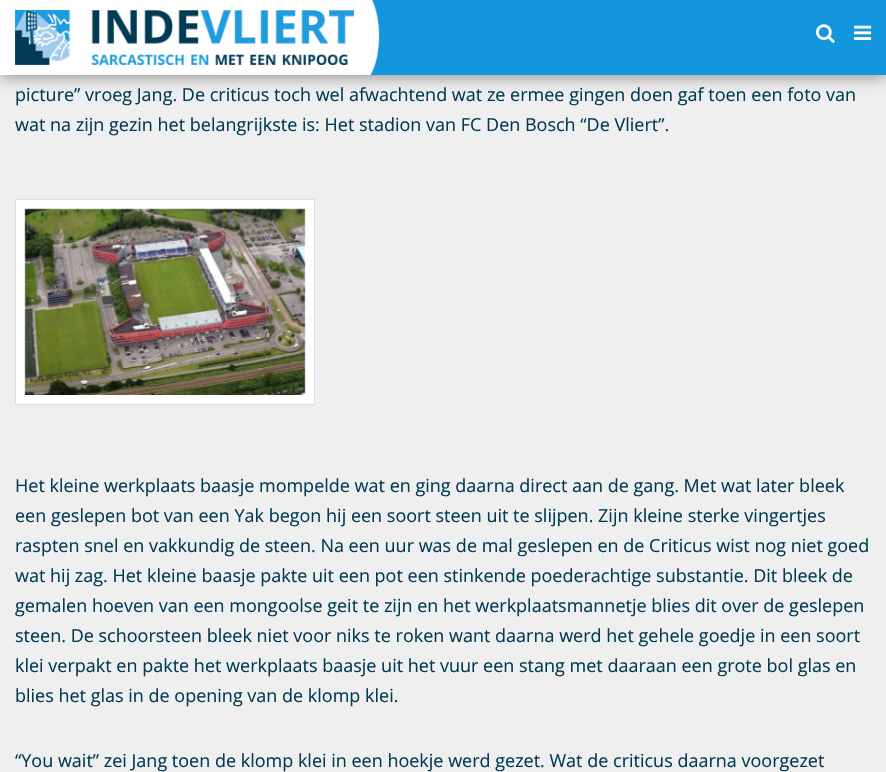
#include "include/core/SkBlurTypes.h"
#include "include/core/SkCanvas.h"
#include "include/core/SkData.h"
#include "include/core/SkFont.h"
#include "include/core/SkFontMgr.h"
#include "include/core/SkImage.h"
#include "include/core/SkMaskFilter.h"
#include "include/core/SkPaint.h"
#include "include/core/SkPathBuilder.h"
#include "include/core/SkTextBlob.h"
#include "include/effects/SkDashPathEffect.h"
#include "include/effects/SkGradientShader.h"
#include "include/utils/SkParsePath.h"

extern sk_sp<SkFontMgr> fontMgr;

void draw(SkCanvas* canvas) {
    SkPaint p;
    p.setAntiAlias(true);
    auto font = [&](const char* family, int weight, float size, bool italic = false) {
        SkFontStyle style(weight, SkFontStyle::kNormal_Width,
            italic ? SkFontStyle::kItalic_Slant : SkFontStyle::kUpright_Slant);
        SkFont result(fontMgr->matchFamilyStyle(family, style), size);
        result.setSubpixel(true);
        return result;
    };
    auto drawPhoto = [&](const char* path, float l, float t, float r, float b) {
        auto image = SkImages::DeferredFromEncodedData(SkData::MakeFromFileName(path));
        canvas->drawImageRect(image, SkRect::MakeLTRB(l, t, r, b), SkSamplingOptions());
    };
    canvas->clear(0xFFEFEFEF);
    p.setColor(0x66000000);
    p.setMaskFilter(SkMaskFilter::MakeBlur(kNormal_SkBlurStyle, 7.5f));
    canvas->drawRect(SkRect::MakeLTRB(0, 2, 886, 77), p);
    p.setMaskFilter(nullptr);
    p.setColor(0xFFFFFFFF);
    canvas->drawRect(SkRect::MakeLTRB(0, 0, 380, 75), p);
    drawPhoto("media/1.png", 15, 10, 354, 65);
    drawPhoto("media/2.png", 370, 0, 886, 75);
    drawPhoto("media/3.png", 816, 24, 835, 43);
    drawPhoto("media/4.png", 854, 25, 872, 40);
    auto font1 = font("Open Sans", 400, 18);
    p.setColor(0xFF013A53);
    canvas->drawString("picture” vroeg Jang. De criticus toch wel afwachtend wat ze ermee gingen doen gaf toen een foto van", 15, 101, font1, p);
    canvas->drawString("wat na zijn gezin het belangrijkste is: Het stadion van FC Den Bosch “De Vliert”.", 15, 131, font1, p);
    p.setColor(0xFFFFFFFF);
    canvas->drawRect(SkRect::MakeLTRB(15.5f, 199.5f, 314.5f, 404.5f), p);
    p.setStyle(SkPaint::kStroke_Style);
    p.setStrokeWidth(1);
    p.setColor(0xFFDDDDDD);
    canvas->drawRect(SkRect::MakeLTRB(15.5f, 199.5f, 314.5f, 404.5f), p);
    drawPhoto("media/5.png", 24, 208, 306, 395);
    p.setStyle(SkPaint::kFill_Style);
    p.setColor(0xFF013A53);
    {
        const struct { const char* s; float x, y; } items[] = {
            {"Het kleine werkplaats baasje mompelde wat en ging daarna direct aan de gang. Met wat later bleek", 15, 492},
            {"een geslepen bot van een Yak begon hij een soort steen uit te slijpen. Zijn kleine sterke vingertjes", 15, 522},
            {"raspten snel en vakkundig de steen. Na een uur was de mal geslepen en de Criticus wist nog niet goed", 15, 552},
            {"wat hij zag. Het kleine baasje pakte uit een pot een stinkende poederachtige substantie. Dit bleek de", 15, 582},
            {"gemalen hoeven van een mongoolse geit te zijn en het werkplaatsmannetje blies dit over de geslepen", 15, 612},
            {"steen. De schoorsteen bleek niet voor niks te roken want daarna werd het gehele goedje in een soort", 15, 642},
            {"klei verpakt en pakte het werkplaats baasje uit het vuur een stang met daaraan een grote bol glas en", 15, 672},
            {"blies het glas in de opening van de klomp klei.", 15, 702},
            {"“You wait” zei Jang toen de klomp klei in een hoekje werd gezet. Wat de criticus daarna voorgezet", 15, 767},
        };
        for (auto [s, x, y] : items) {
            canvas->drawString(s, x, y, font1, p);
        }
    }
}
